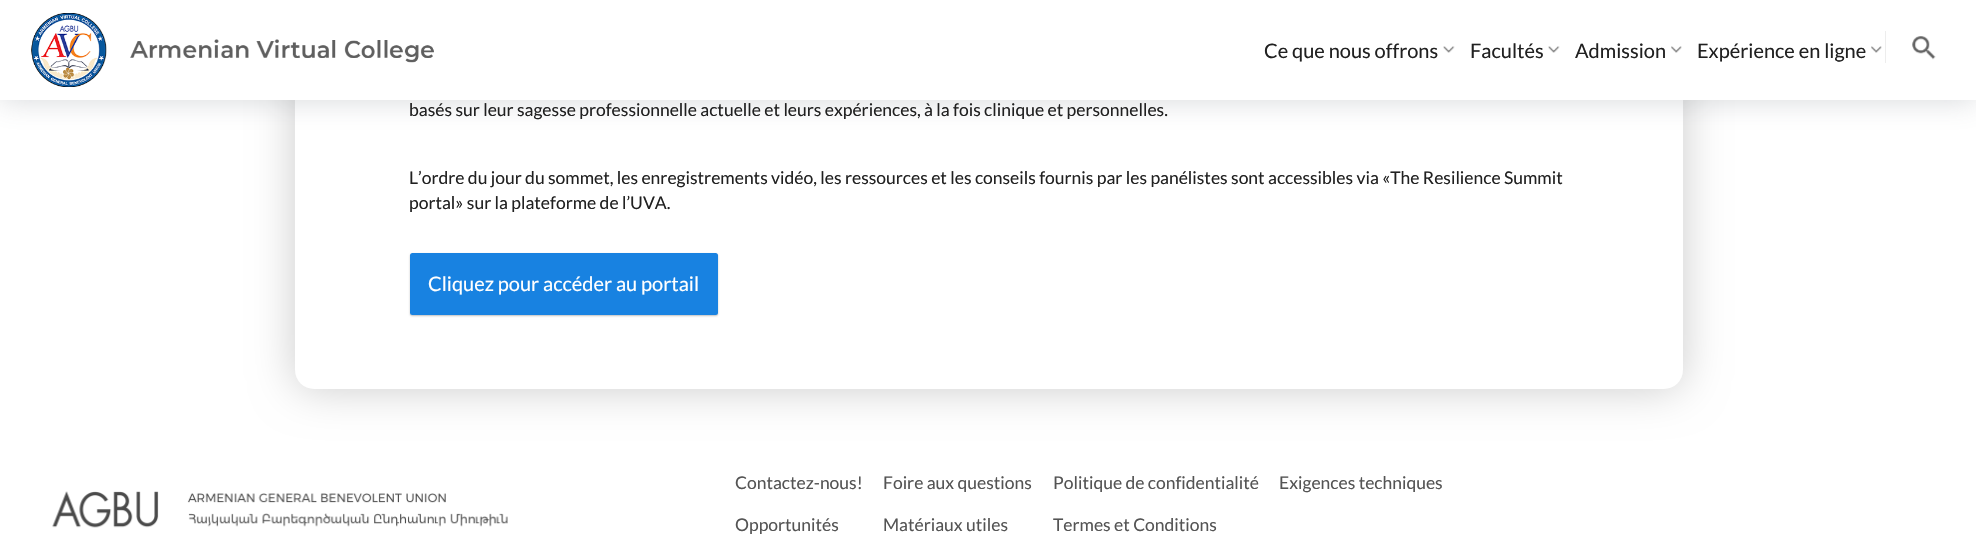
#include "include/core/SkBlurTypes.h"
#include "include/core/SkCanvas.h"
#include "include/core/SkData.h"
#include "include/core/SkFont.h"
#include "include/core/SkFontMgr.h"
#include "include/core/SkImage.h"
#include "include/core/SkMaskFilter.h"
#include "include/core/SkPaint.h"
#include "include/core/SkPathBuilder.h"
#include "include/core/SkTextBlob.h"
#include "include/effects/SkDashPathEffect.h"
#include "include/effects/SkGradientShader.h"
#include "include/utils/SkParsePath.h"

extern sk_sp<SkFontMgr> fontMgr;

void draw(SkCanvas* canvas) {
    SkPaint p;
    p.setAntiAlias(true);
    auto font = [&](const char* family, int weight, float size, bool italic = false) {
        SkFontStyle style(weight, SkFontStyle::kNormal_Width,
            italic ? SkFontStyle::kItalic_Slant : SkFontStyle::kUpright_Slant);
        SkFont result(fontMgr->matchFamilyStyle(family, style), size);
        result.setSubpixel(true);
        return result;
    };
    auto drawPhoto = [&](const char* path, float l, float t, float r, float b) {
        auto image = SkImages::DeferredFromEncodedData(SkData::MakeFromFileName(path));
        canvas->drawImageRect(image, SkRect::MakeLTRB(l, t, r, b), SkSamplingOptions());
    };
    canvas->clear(0xFFFFFFFF);
    p.setColor(0x33000000);
    p.setMaskFilter(SkMaskFilter::MakeBlur(kNormal_SkBlurStyle, 22));
    canvas->drawRoundRect(SkRect::MakeLTRB(295, -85, 1683, 389), 19, 19, p);
    p.setMaskFilter(nullptr);
    p.setColor(0xFFFFFFFF);
    canvas->drawRoundRect(SkRect::MakeLTRB(295, -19, 1683, 389), 19, 19, p);
    p.setColor(0x4D737C84);
    p.setMaskFilter(SkMaskFilter::MakeBlur(kNormal_SkBlurStyle, 14));
    canvas->drawRect(SkRect::MakeLTRB(0, 0, 1976, 100), p);
    p.setMaskFilter(nullptr);
    p.setColor(0xFFFFFFFF);
    canvas->drawRect(SkRect::MakeLTRB(0, 0, 1976, 100), p);
    drawPhoto("media/1.png", 31, 13, 434, 87);
    auto font1 = font("Lato", 400, 20);
    p.setColor(0xFF212121);
    canvas->drawString("Ce que nous offrons", 1264, 58, font1, p);
    drawPhoto("media/2.png", 1443, 46, 1455, 53);
    canvas->drawString("Facultés", 1470, 58, font1, p);
    drawPhoto("media/2.png", 1548, 46, 1560, 53);
    canvas->drawString("Admission", 1575, 58, font1, p);
    drawPhoto("media/3.png", 1671, 46, 1682, 53);
    canvas->drawString("Expérience en ligne", 1697, 58, font1, p);
    drawPhoto("media/3.png", 1871, 46, 1882, 53);
    p.setColor(0xFFEDEDED);
    canvas->drawRect(SkRect::MakeLTRB(1885, 31, 1886, 63), p);
    drawPhoto("media/4.png", 1912, 36, 1936, 60);
    auto font2 = font("Lato", 400, 17.5f);
    p.setColor(0xFF212121);
    {
        const struct { const char* s; float x, y; } items[] = {
            {"basés sur leur sagesse professionnelle actuelle et leurs expériences, à la fois clinique et personnelles.", 409, 116},
            {"L’ordre du jour du sommet, les enregistrements vidéo, les ressources et les conseils fournis par les panélistes sont accessibles via «The Resilience Summit", 409, 184},
            {"portal» sur la plateforme de l’UVA.", 409, 209},
        };
        for (auto [s, x, y] : items) {
            canvas->drawString(s, x, y, font2, p);
        }
    }
    p.setColor(0x40000000);
    p.setMaskFilter(SkMaskFilter::MakeBlur(kNormal_SkBlurStyle, 1));
    canvas->drawRoundRect(SkRect::MakeLTRB(410, 254, 718, 316), 2.5f, 2.5f, p);
    p.setMaskFilter(nullptr);
    p.setColor(0xFF1882E1);
    canvas->drawRoundRect(SkRect::MakeLTRB(410, 253, 718, 315), 2.5f, 2.5f, p);
    p.setColor(0xFFFFFFFF);
    canvas->drawString("Cliquez pour accéder au portail", 428, 291, font1, p);
    drawPhoto("media/5.png", 52, 491, 508, 528);
    p.setColor(0xFF545454);
    {
        const struct { const char* s; float x, y; } items[] = {
            {"Contactez-nous!", 735, 489},
            {"Opportunités", 735, 531},
            {"Foire aux questions", 883, 489},
            {"Matériaux utiles", 883, 531},
            {"Politique de confidentialité", 1053, 489},
            {"Termes et Conditions", 1053, 531},
            {"Exigences techniques", 1279, 489},
        };
        for (auto [s, x, y] : items) {
            canvas->drawString(s, x, y, font2, p);
        }
    }
}
